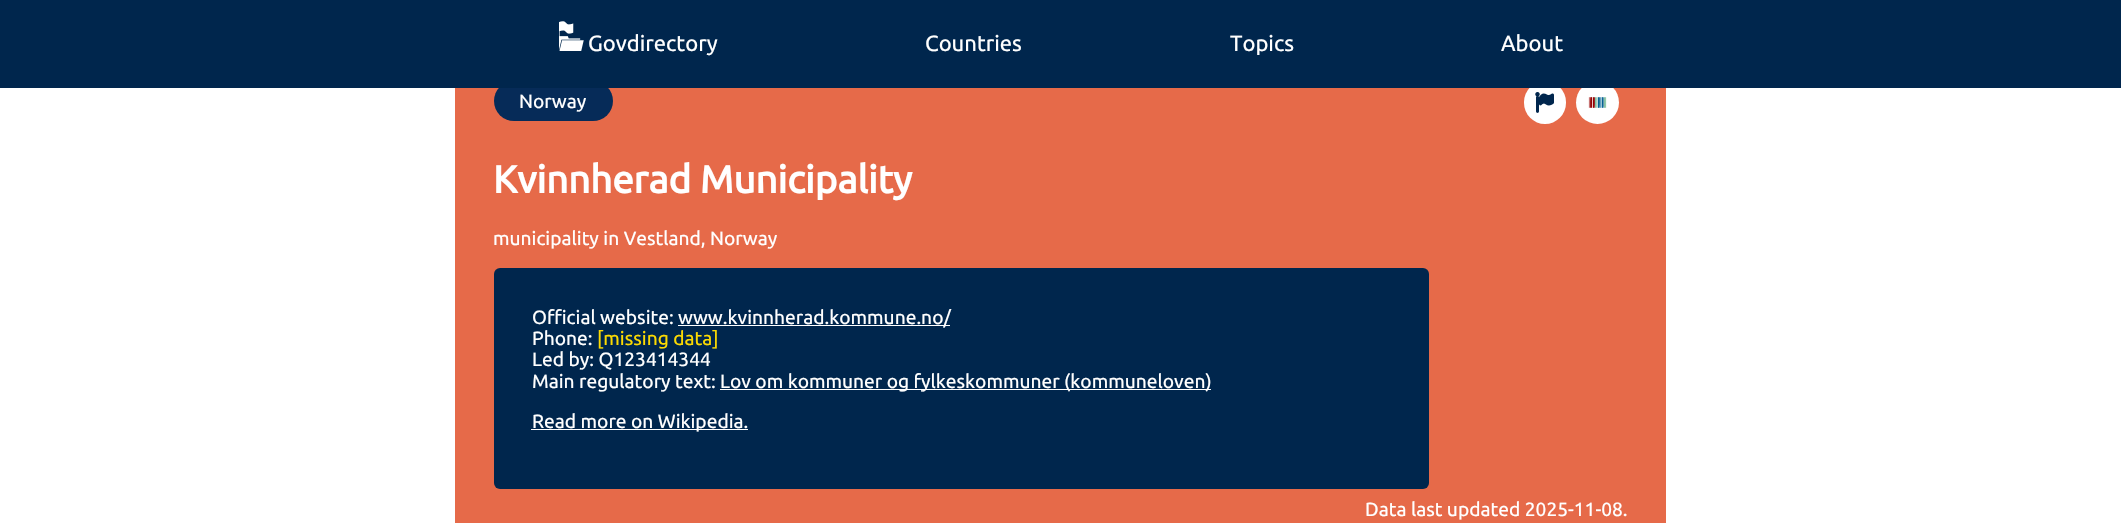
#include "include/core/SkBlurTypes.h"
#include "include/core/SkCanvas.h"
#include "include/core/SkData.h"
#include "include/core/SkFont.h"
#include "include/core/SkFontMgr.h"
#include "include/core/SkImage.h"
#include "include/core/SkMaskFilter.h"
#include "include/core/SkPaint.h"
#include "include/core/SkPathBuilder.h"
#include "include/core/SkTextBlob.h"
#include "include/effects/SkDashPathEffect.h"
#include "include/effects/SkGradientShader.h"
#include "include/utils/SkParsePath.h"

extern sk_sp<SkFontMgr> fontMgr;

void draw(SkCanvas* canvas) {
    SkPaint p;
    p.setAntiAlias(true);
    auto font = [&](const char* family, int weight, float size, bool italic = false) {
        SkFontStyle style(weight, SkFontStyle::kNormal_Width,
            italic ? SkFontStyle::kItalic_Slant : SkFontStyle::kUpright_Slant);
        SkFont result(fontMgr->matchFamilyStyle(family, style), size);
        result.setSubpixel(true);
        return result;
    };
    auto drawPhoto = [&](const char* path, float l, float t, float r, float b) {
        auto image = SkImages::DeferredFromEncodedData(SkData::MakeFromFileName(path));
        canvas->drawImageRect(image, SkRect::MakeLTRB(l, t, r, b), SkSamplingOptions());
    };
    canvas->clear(0xFFFFFFFF);
    p.setColor(0xFFE66A49);
    canvas->drawRect(SkRect::MakeLTRB(455, 88, 1666, 523), p);
    p.setColor(0xFF062B58);
    canvas->drawRoundRect(SkRect::MakeLTRB(494, 81, 613, 121), 20, 20, p);
    p.setColor(0xFFFFFFFF);
    canvas->drawRoundRect(SkRect::MakeLTRB(1524, 81, 1566, 124), 21, 21, p);
    canvas->drawCircle(1597.5f, 102.5f, 21.5f, p);
    p.setColor(0xFF00264D);
    canvas->drawRect(SkRect::MakeLTRB(0, 0, 2121, 88), p);
    drawPhoto("media/1.png", 559, 21, 584, 51);
    auto font1 = font("Ubuntu", 400, 22);
    p.setColor(0xFFFFFFFF);
    {
        const struct { const char* s; float x, y; } items[] = {
            {"Govdirectory", 588, 51},
            {"Countries", 925, 51},
            {"Topics", 1230, 51},
            {"About", 1501, 51},
        };
        for (auto [s, x, y] : items) {
            canvas->drawString(s, x, y, font1, p);
        }
    }
    auto font2 = font("Ubuntu", 400, 19.2f);
    canvas->drawString("Norway", 519, 108, font2, p);
    drawPhoto("media/2.png", 1535, 92, 1554, 113);
    drawPhoto("media/3.png", 1588, 97, 1607, 108);
    auto font3 = font("Ubuntu", 700, 38.4f);
    canvas->drawString("Kvinnherad Municipality", 493, 193, font3, p);
    canvas->drawString("municipality in Vestland, Norway", 493, 245, font2, p);
    p.setColor(0xFF00264D);
    canvas->drawRoundRect(SkRect::MakeLTRB(494, 268, 1429, 489), 6, 6, p);
    p.setColor(0xFFFFFFFF);
    canvas->drawString("Official website:", 532, 324, font2, p);
    canvas->drawRect(SkRect::MakeLTRB(678, 325, 950, 326), p);
    canvas->drawString("www.kvinnherad.kommune.no/", 678, 324, font2, p);
    canvas->drawString("Phone:", 532, 345, font2, p);
    p.setColor(0xFFFCDA02);
    canvas->drawString("[missing data]", 597, 345, font2, p);
    p.setColor(0xFFFFFFFF);
    canvas->drawString("Led by: Q123414344", 532, 366, font2, p);
    canvas->drawString("Main regulatory text:", 532, 388, font2, p);
    canvas->drawRect(SkRect::MakeLTRB(720, 389, 1211, 390), p);
    canvas->drawString("Lov om kommuner og fylkeskommuner (kommuneloven)", 720, 388, font2, p);
    canvas->drawRect(SkRect::MakeLTRB(531, 429, 748, 430), p);
    canvas->drawString("Read more on Wikipedia.", 532, 428, font2, p);
    canvas->drawString("Data last updated 2025-11-08.", 1365, 516, font2, p);
}
